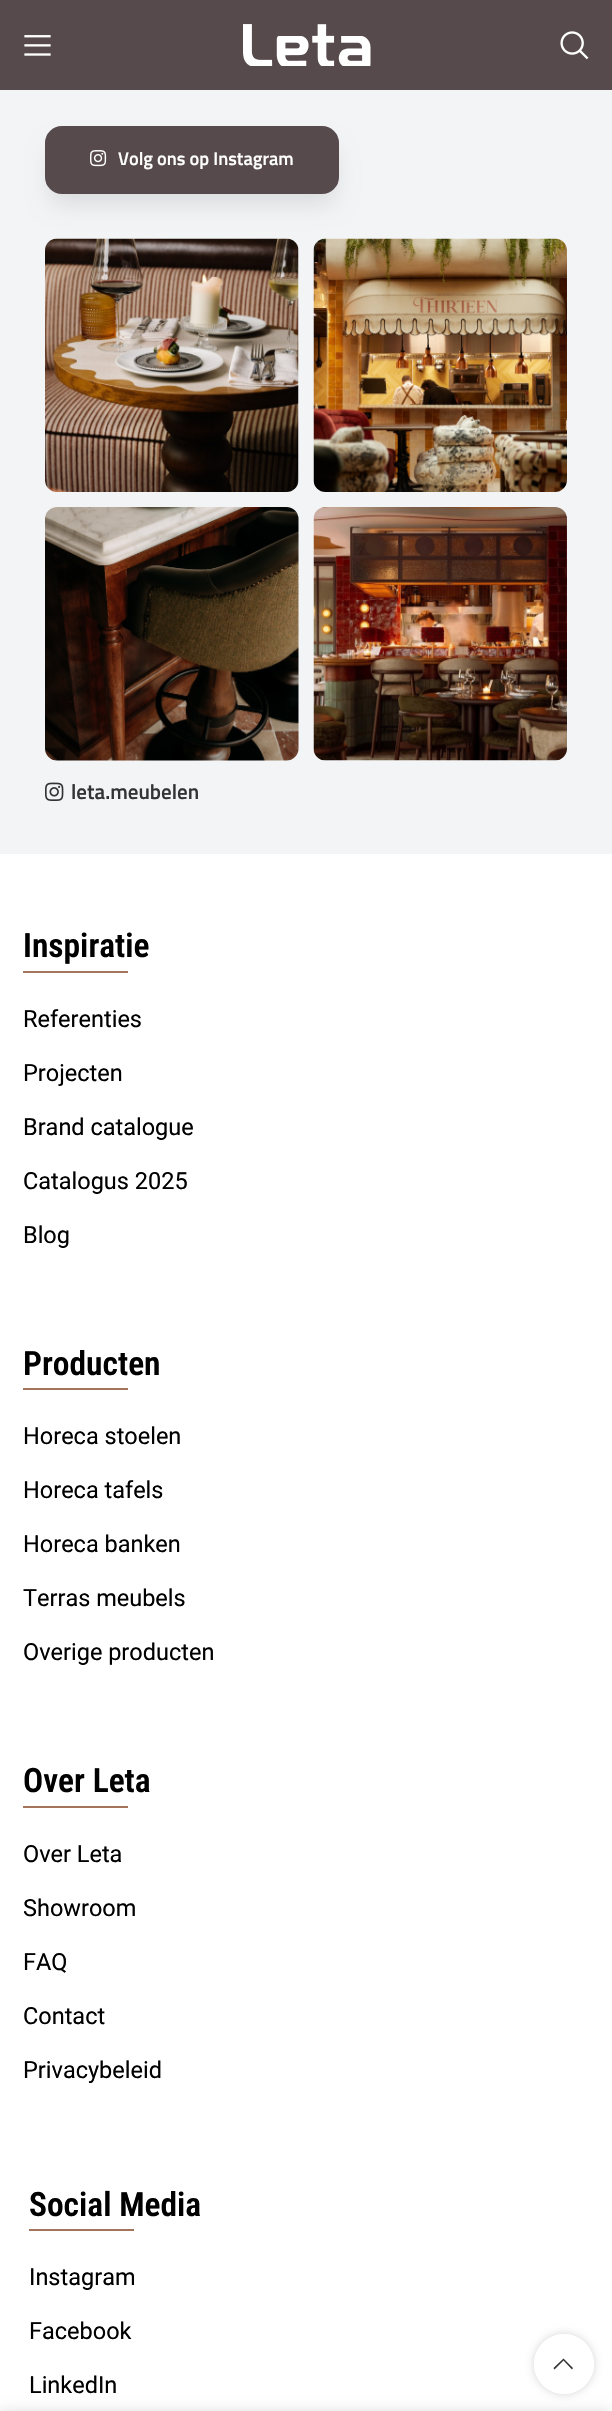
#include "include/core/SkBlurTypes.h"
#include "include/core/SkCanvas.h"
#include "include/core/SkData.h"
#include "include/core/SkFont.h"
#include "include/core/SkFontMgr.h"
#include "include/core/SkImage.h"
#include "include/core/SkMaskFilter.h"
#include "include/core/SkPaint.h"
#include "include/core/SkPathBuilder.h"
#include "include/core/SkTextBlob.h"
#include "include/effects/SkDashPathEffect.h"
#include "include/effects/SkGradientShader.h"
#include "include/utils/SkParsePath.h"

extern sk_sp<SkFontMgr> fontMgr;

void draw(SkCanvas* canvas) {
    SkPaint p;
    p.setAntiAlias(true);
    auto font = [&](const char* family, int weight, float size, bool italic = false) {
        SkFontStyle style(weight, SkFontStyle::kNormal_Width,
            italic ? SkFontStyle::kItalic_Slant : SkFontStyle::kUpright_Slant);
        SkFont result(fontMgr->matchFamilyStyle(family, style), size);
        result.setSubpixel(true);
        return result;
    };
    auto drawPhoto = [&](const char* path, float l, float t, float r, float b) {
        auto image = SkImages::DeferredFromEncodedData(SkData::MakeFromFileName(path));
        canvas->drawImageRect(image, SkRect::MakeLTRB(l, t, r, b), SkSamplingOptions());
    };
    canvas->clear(0xFFFFFFFF);
    p.setColor(0xFF574A4C);
    canvas->drawRect(SkRect::MakeLTRB(0, 0, 612, 90), p);
    drawPhoto("media/1.png", 24, 35, 51, 56);
    drawPhoto("media/2.png", 243, 24, 371, 66);
    drawPhoto("media/3.png", 560, 31, 589, 60);
    p.setColor(0xFFF3F4F6);
    canvas->drawRect(SkRect::MakeLTRB(0, 90, 612, 854), p);
    p.setColor(0x1A000000);
    p.setMaskFilter(SkMaskFilter::MakeBlur(kNormal_SkBlurStyle, 11));
    canvas->drawRoundRect(SkRect::MakeLTRB(50, 146, 335, 204), 12, 12, p);
    p.setMaskFilter(nullptr);
    p.setColor(0xFF574A4C);
    canvas->drawRoundRect(SkRect::MakeLTRB(46.5f, 127.5f, 337.5f, 192.5f), 15.5f, 15.5f, p);
    p.setStyle(SkPaint::kStroke_Style);
    p.setStrokeWidth(3);
    canvas->drawRoundRect(SkRect::MakeLTRB(46.5f, 127.5f, 337.5f, 192.5f), 15.5f, 15.5f, p);
    drawPhoto("media/4.png", 90, 150, 107, 167);
    auto font1 = font("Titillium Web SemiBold", 600, 18.4f);
    p.setStyle(SkPaint::kFill_Style);
    p.setColor(0xFFFFFFFF);
    canvas->drawString("Volg ons op Instagram", 118, 165, font1, p);
    drawPhoto("media/5.png", 45, 238, 299, 492);
    drawPhoto("media/6.png", 313, 238, 567, 492);
    drawPhoto("media/7.png", 45, 507, 299, 761);
    drawPhoto("media/8.png", 313, 507, 567, 761);
    drawPhoto("media/9.png", 45, 782, 64, 801);
    auto font2 = font("Titillium Web SemiBold", 600, 21);
    p.setColor(0xFF333333);
    canvas->drawString("leta.meubelen", 71, 799, font2, p);
    auto font3 = font("Roboto Condensed", 600, 33.5f);
    p.setColor(0xFF000000);
    canvas->drawString("Inspiratie", 23, 957, font3, p);
    p.setColor(0xFFA3755C);
    canvas->drawRect(SkRect::MakeLTRB(23, 971, 128, 973), p);
    auto font4 = font("Roboto", 400, 23.5f);
    p.setColor(0xFF000000);
    {
        const struct { const char* s; float x, y; } items[] = {
            {"Referenties", 23, 1027},
            {"Projecten", 23, 1081},
            {"Brand catalogue", 23, 1135},
            {"Catalogus 2025", 23, 1189},
            {"Blog", 23, 1243},
        };
        for (auto [s, x, y] : items) {
            canvas->drawString(s, x, y, font4, p);
        }
    }
    canvas->drawString("Producten", 23, 1375, font3, p);
    p.setColor(0xFFA3755C);
    canvas->drawRect(SkRect::MakeLTRB(23, 1388, 128, 1390), p);
    p.setColor(0xFF000000);
    {
        const struct { const char* s; float x, y; } items[] = {
            {"Horeca stoelen", 23, 1444},
            {"Horeca tafels", 23, 1498},
            {"Horeca banken", 23, 1552},
            {"Terras meubels", 23, 1606},
            {"Overige producten", 23, 1660},
        };
        for (auto [s, x, y] : items) {
            canvas->drawString(s, x, y, font4, p);
        }
    }
    canvas->drawString("Over Leta", 23, 1792, font3, p);
    p.setColor(0xFFA3755C);
    canvas->drawRect(SkRect::MakeLTRB(23, 1806, 128, 1808), p);
    p.setColor(0xFF000000);
    {
        const struct { const char* s; float x, y; } items[] = {
            {"Over Leta", 23, 1862},
            {"Showroom", 23, 1916},
            {"FAQ", 23, 1970},
            {"Contact", 23, 2024},
            {"Privacybeleid", 23, 2078},
        };
        for (auto [s, x, y] : items) {
            canvas->drawString(s, x, y, font4, p);
        }
    }
    canvas->drawString("Social Media", 29, 2216, font3, p);
    p.setColor(0xFFA3755C);
    canvas->drawRect(SkRect::MakeLTRB(29, 2229, 134, 2231), p);
    p.setColor(0xFF000000);
    {
        const struct { const char* s; float x, y; } items[] = {
            {"Instagram", 29, 2285},
            {"Facebook", 29, 2339},
            {"LinkedIn", 29, 2393},
        };
        for (auto [s, x, y] : items) {
            canvas->drawString(s, x, y, font4, p);
        }
    }
    canvas->save();
    canvas->clipPath(SkPathBuilder(SkPathFillType::kEvenOdd).moveTo(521, 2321).lineTo(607, 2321).lineTo(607, 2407).lineTo(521, 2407).close().moveTo(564, 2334).cubicTo(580.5f, 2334, 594, 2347.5f, 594, 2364).cubicTo(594, 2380.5f, 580.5f, 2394, 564, 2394).cubicTo(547.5f, 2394, 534, 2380.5f, 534, 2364).cubicTo(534, 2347.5f, 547.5f, 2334, 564, 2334).close().detach(), true);
    p.setColor(0x2B000000);
    p.setMaskFilter(SkMaskFilter::MakeBlur(kNormal_SkBlurStyle, 4));
    canvas->drawRoundRect(SkRect::MakeLTRB(534, 2334, 594, 2394), 30, 30, p);
    p.setMaskFilter(nullptr);
    canvas->restore();
    p.setColor(0xE6FFFFFF);
    canvas->drawCircle(564, 2364, 30, p);
    p.setColor(0xFF333333);
    canvas->drawPath(SkPathBuilder().moveTo(572, 2369.5f).lineTo(573, 2368).lineTo(563.5f, 2358.5f).lineTo(553.5f, 2368).lineTo(554.5f, 2369.5f).lineTo(563.5f, 2360.5f).close().detach(), p);
    p.setColor(0x24000000);
    p.setMaskFilter(SkMaskFilter::MakeBlur(kNormal_SkBlurStyle, 7));
    canvas->drawRect(SkRect::MakeLTRB(0, 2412, 612, 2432), p);
    p.setMaskFilter(nullptr);
}
